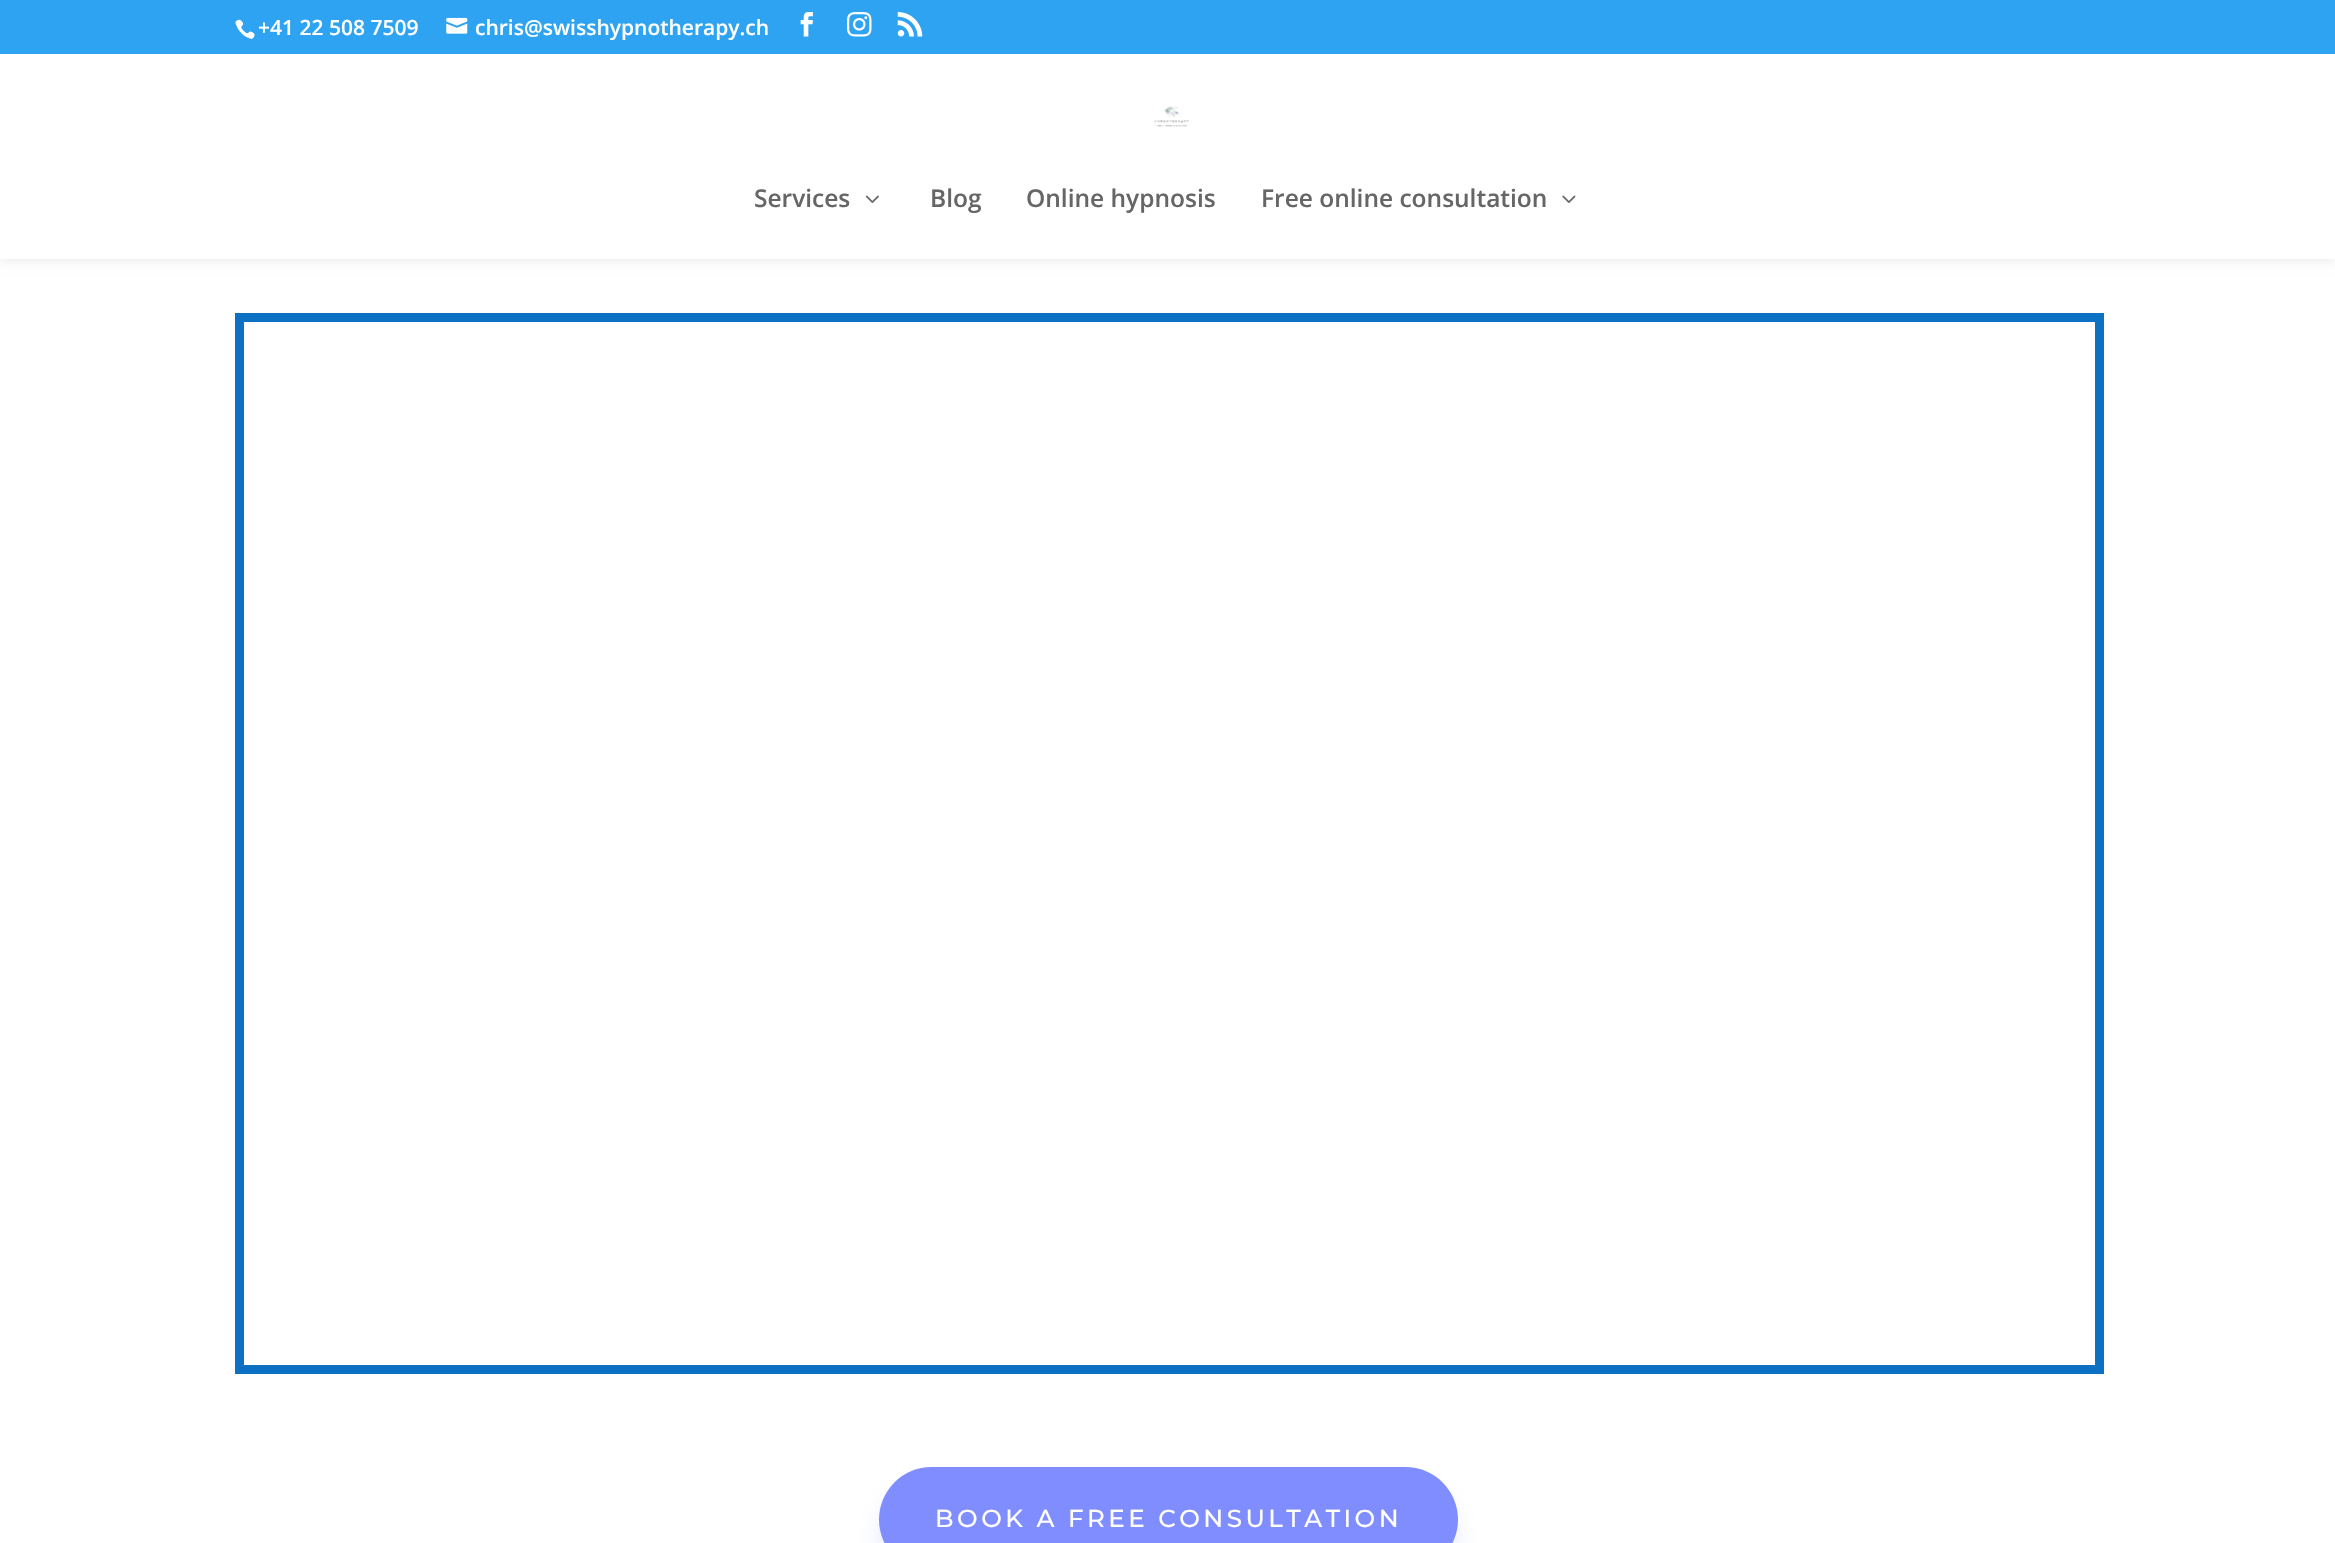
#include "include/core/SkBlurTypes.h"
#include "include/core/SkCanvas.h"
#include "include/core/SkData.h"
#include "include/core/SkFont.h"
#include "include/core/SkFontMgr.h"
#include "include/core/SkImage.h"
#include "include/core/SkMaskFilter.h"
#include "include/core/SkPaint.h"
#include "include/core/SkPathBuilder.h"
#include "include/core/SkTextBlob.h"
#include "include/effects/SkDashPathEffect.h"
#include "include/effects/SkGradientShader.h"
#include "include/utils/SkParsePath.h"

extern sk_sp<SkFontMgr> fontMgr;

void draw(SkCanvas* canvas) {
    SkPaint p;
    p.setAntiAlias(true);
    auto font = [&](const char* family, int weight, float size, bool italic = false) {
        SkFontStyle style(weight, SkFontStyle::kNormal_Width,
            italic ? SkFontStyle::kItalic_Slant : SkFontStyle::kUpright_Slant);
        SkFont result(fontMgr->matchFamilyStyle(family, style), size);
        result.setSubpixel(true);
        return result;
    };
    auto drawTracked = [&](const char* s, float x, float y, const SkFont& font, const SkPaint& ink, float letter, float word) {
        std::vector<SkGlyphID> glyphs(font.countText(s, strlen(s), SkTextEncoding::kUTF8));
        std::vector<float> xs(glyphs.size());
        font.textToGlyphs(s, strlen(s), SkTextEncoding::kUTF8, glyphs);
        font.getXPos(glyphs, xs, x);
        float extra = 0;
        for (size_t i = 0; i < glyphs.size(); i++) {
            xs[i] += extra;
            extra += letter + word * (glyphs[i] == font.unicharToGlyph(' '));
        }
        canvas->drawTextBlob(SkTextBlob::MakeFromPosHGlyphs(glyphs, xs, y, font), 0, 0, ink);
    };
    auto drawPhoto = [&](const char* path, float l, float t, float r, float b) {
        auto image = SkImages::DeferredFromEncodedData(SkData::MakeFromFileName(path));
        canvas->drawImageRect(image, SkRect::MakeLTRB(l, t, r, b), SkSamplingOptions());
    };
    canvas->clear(0xFFFFFFFF);
    p.setColor(0x1A000000);
    p.setMaskFilter(SkMaskFilter::MakeBlur(kNormal_SkBlurStyle, 6));
    canvas->drawRect(SkRect::MakeLTRB(0, 54, 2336, 259), p);
    p.setMaskFilter(nullptr);
    p.setColor(0xFF2EA3F2);
    canvas->drawRect(SkRect::MakeLTRB(0, 0, 2335, 54), p);
    drawPhoto("media/1.png", 235, 19, 255, 39);
    auto font1 = font("Open Sans", 600, 21);
    p.setColor(0xFFFFFFFF);
    canvas->drawString("+41 22 508 7509", 258, 35, font1, p);
    drawPhoto("media/2.png", 446, 17, 468, 34);
    canvas->drawString("chris@swisshypnotherapy.ch", 475, 35, font1, p);
    drawPhoto("media/3.png", 800, 12, 813, 37);
    drawPhoto("media/4.png", 847, 12, 872, 37);
    drawPhoto("media/5.png", 897, 12, 923, 37);
    canvas->drawRect(SkRect::MakeLTRB(0, 54, 2335, 259), p);
    drawPhoto("media/6.png", 1154, 106, 1189, 127);
    auto font2 = font("Open Sans", 600, 24.5f);
    p.setColor(0xFF666666);
    canvas->drawString("Services", 754, 207, font2, p);
    drawPhoto("media/7.png", 865, 195, 879, 203);
    {
        const struct { const char* s; float x, y; } items[] = {
            {"Blog", 930, 207},
            {"Online hypnosis", 1026, 207},
            {"Free online consultation", 1261, 207},
        };
        for (auto [s, x, y] : items) {
            canvas->drawString(s, x, y, font2, p);
        }
    }
    drawPhoto("media/8.png", 1562, 195, 1576, 203);
    p.setStyle(SkPaint::kStroke_Style);
    p.setStrokeWidth(9);
    p.setColor(0xFF0C71C3);
    canvas->drawRect(SkRect::MakeLTRB(239.5f, 317.5f, 2099.5f, 1369.5f), p);
    p.setStyle(SkPaint::kFill_Style);
    p.setColor(0x667F8DFF);
    p.setMaskFilter(SkMaskFilter::MakeBlur(kNormal_SkBlurStyle, 16));
    canvas->drawRoundRect(SkRect::MakeLTRB(889, 1498, 1447, 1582), 42, 42, p);
    p.setMaskFilter(nullptr);
    p.setColor(0xFF7F8DFF);
    canvas->drawRoundRect(SkRect::MakeLTRB(879, 1467, 1458, 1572), 52.5f, 52.5f, p);
    auto font3 = font("Montserrat", 500, 24.5f);
    p.setColor(0xFFFFFFFF);
    drawTracked("BOOK A FREE CONSULTATION", 935, 1527, font3, p, 3.5f, 0);
}
